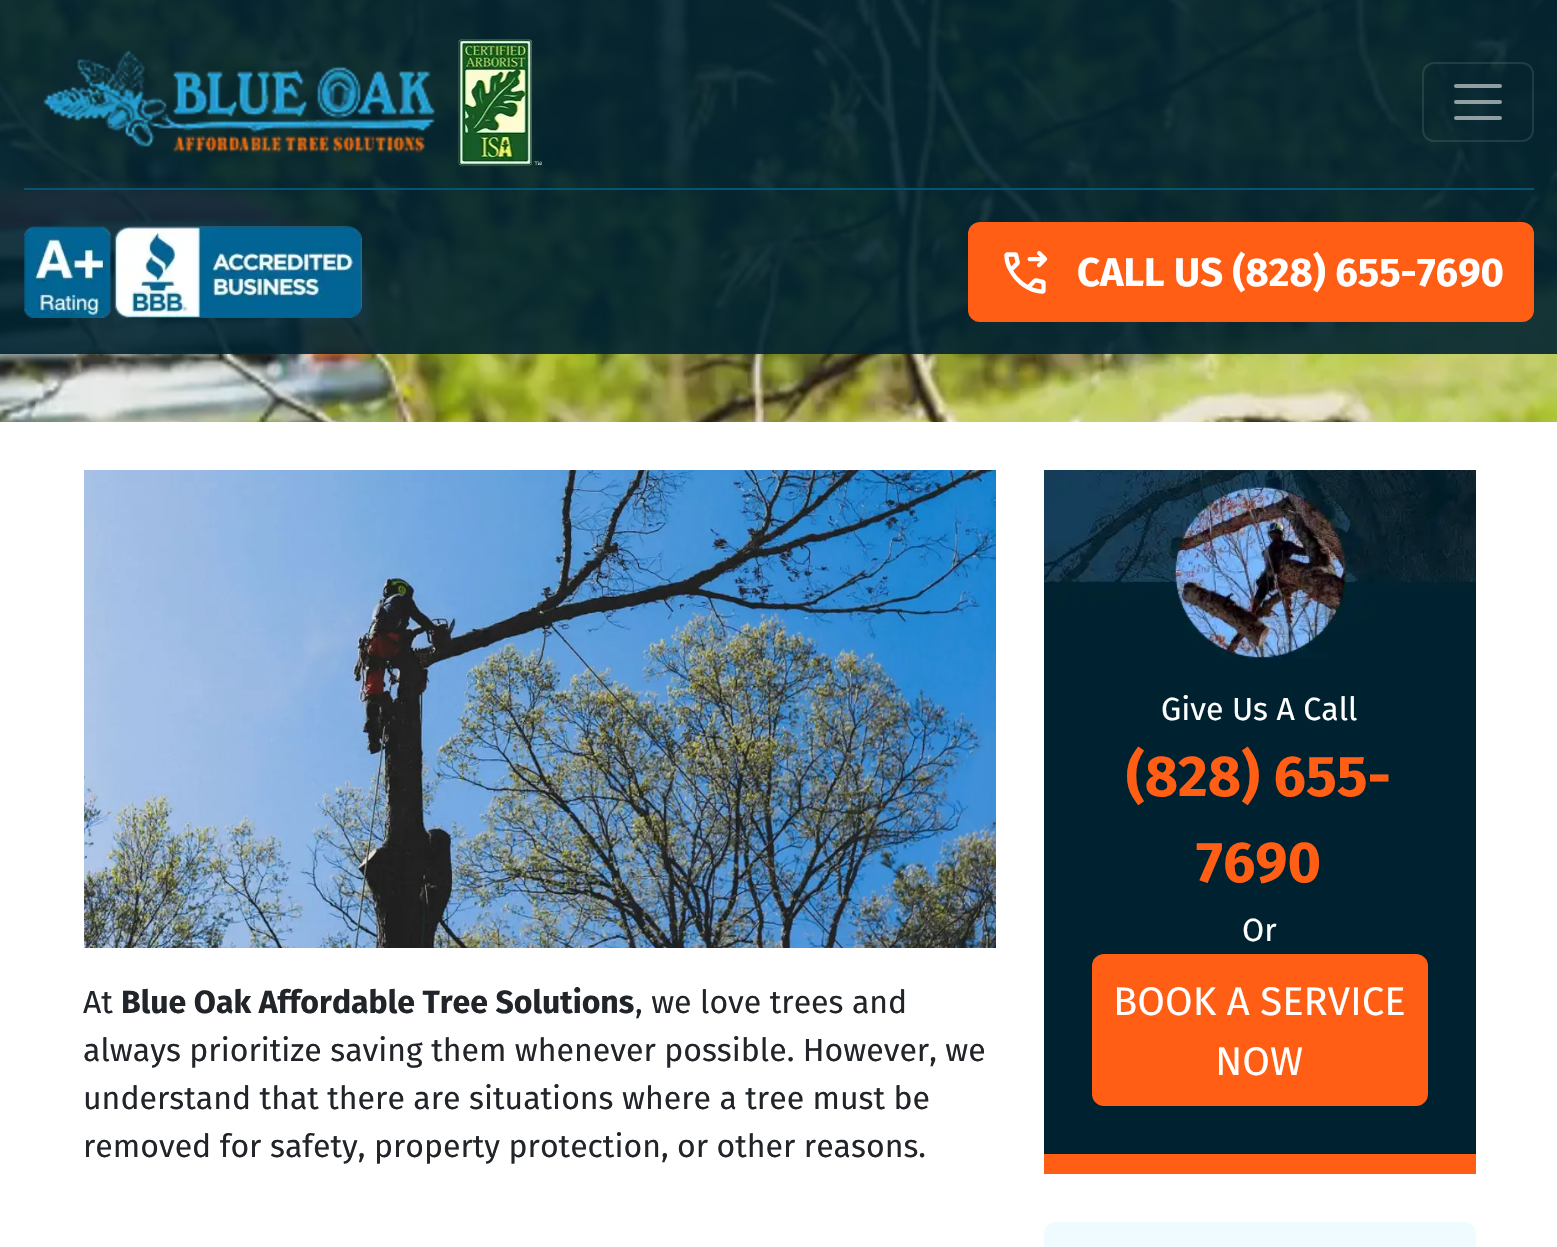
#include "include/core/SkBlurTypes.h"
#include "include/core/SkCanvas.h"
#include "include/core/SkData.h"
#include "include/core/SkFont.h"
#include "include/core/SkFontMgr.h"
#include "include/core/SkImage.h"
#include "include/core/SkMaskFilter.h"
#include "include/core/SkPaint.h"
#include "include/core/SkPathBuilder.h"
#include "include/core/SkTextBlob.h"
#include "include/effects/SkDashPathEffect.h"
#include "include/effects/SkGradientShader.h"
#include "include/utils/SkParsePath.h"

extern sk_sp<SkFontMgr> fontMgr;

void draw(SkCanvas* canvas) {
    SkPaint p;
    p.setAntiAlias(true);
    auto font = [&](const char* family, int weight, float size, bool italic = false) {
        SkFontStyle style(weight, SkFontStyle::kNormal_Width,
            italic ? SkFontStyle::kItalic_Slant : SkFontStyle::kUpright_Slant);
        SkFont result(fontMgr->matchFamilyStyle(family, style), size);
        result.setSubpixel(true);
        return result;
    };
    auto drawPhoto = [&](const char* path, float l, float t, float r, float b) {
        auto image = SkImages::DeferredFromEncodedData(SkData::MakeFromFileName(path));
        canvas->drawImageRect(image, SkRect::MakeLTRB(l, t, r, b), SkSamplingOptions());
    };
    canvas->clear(0xFFFFFFFF);
    drawPhoto("media/1.png", 0, 0, 1557, 422);
    p.setColor(0xE6002230);
    canvas->drawRect(SkRect::MakeLTRB(0, 0, 1557, 354), p);
    drawPhoto("media/2.png", 43, 49, 435, 153);
    drawPhoto("media/3.png", 458, 39, 542, 166);
    p.setStyle(SkPaint::kStroke_Style);
    p.setStrokeWidth(2);
    p.setColor(0x1AFFFFFF);
    canvas->drawRoundRect(SkRect::MakeLTRB(1423, 63, 1533, 141), 11, 11, p);
    p.setStrokeWidth(4);
    p.setStrokeCap(SkPaint::kRound_Cap);
    p.setColor(0x8CFFFFFF);
    canvas->drawPath(SkPathBuilder().moveTo(1456, 86).lineTo(1500, 86).moveTo(1456, 102).lineTo(1500, 102).moveTo(1456, 118).lineTo(1500, 118).detach(), p);
    p.setStyle(SkPaint::kFill_Style);
    p.setColor(0xFF075373);
    canvas->drawRect(SkRect::MakeLTRB(24, 188, 1534, 190), p);
    drawPhoto("media/4.png", 24, 226, 362, 318);
    p.setColor(0xFFFF5E14);
    canvas->drawRoundRect(SkRect::MakeLTRB(968, 222, 1534, 322), 12, 12, p);
    drawPhoto("media/5.png", 1004, 251, 1048, 294);
    auto font1 = font("Fira Sans", 700, 40);
    p.setColor(0xFFFFFFFF);
    canvas->drawString("CALL US (828) 655-7690", 1077, 286, font1, p);
    drawPhoto("media/6.png", 84, 470, 996, 948);
    auto font2 = font("Fira Sans", 400, 32);
    p.setColor(0xFF212529);
    canvas->drawString("At", 83, 1013, font2, p);
    auto font3 = font("Fira Sans", 700, 32);
    canvas->drawString("Blue Oak Affordable Tree Solutions", 121, 1013, font3, p);
    {
        const struct { const char* s; float x, y; } items[] = {
            {", we love trees and", 635, 1013},
            {"always prioritize saving them whenever possible. However, we", 83, 1061},
            {"understand that there are situations where a tree must be", 83, 1109},
            {"removed for safety, property protection, or other reasons.", 83, 1157},
        };
        for (auto [s, x, y] : items) {
            canvas->drawString(s, x, y, font2, p);
        }
    }
    p.setColor(0xFF002230);
    canvas->drawRect(SkRect::MakeLTRB(1044, 659, 1476, 1154), p);
    drawPhoto("media/7.png", 1044, 470, 1476, 659);
    p.setColor(0xFFFF5E14);
    canvas->drawRect(SkRect::MakeLTRB(1044, 1154, 1476, 1174), p);
    p.setColor(0xFFFFFFFF);
    canvas->drawString("Give Us A Call", 1161, 720, font2, p);
    auto font4 = font("Fira Sans", 700, 57.5f);
    p.setColor(0xFFFF5E14);
    canvas->drawString("(828) 655-", 1126, 796, font4, p);
    canvas->drawString("7690", 1196, 882, font4, p);
    p.setColor(0xFFFFFFFF);
    canvas->drawString("Or", 1242, 941, font2, p);
    p.setColor(0xFFFF5E14);
    canvas->drawRoundRect(SkRect::MakeLTRB(1092, 954, 1428, 1106), 12, 12, p);
    auto font5 = font("Fira Sans", 400, 40);
    p.setColor(0xFFFFFFFF);
    canvas->drawString("BOOK A SERVICE", 1113, 1015, font5, p);
    canvas->drawString("NOW", 1215, 1075, font5, p);
    p.setColor(0xFFEFFBFF);
    canvas->drawRoundRect(SkRect::MakeLTRB(1044, 1222, 1476, 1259), 12, 12, p);
}
